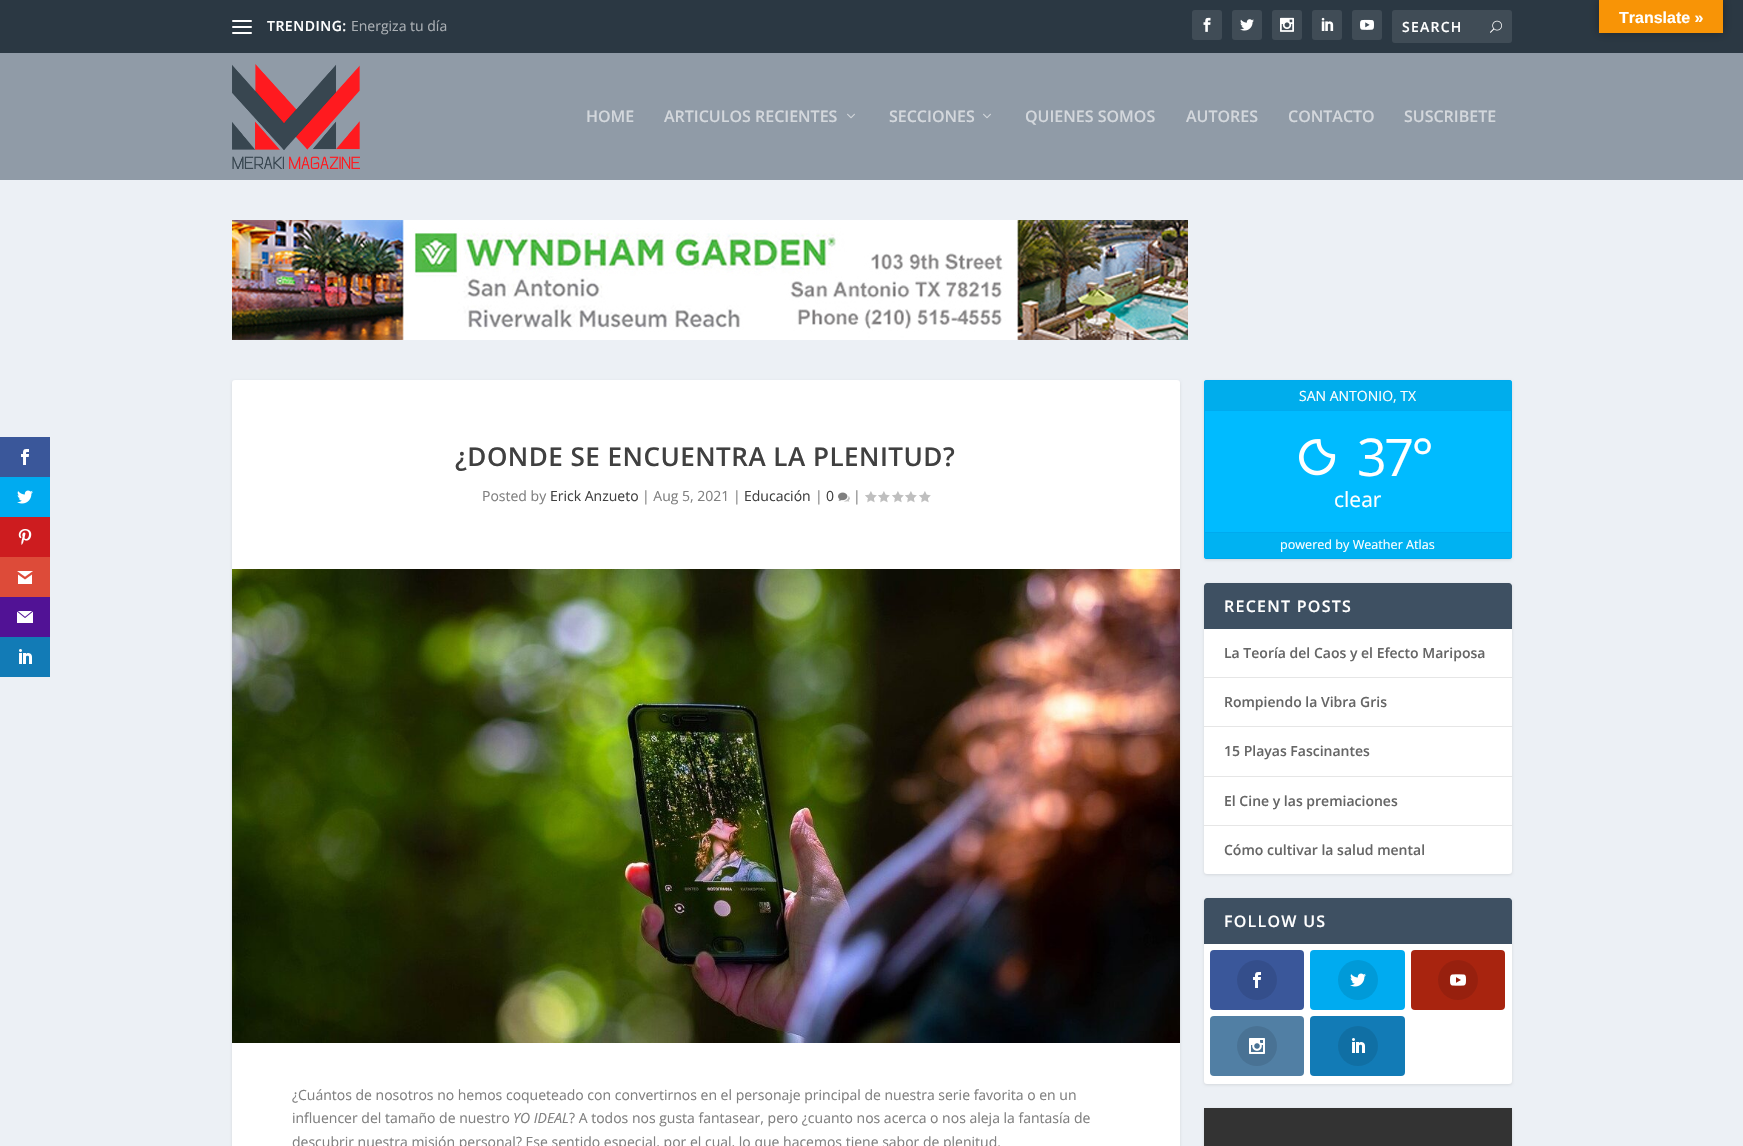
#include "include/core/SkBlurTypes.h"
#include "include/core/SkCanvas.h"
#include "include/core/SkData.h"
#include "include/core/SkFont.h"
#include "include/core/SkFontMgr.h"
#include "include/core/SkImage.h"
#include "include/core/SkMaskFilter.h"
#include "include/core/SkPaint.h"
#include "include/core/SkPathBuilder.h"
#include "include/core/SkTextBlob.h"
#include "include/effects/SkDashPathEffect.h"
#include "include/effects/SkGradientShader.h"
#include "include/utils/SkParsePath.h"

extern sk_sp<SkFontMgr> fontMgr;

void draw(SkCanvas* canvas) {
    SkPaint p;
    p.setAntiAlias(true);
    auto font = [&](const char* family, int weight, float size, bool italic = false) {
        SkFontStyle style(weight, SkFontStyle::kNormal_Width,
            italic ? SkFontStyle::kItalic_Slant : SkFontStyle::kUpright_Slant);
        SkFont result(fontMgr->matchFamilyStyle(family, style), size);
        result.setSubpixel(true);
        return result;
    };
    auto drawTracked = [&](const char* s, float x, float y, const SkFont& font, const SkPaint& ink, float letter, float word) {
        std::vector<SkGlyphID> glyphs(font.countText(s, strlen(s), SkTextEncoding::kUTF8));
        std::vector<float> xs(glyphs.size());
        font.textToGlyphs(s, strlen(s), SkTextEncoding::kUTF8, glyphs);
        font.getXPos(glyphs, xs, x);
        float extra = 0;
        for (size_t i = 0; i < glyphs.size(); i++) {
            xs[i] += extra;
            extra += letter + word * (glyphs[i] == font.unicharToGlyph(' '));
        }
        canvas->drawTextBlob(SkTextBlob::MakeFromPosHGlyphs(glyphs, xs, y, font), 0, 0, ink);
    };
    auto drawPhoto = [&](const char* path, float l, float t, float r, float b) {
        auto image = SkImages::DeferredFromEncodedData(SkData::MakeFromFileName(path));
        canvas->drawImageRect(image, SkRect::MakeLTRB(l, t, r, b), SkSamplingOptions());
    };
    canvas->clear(0xFFECF0F5);
    p.setColor(0xFF2B3843);
    canvas->drawRect(SkRect::MakeLTRB(0, 0, 1743, 53), p);
    p.setColor(0x4D000000);
    p.setMaskFilter(SkMaskFilter::MakeBlur(kNormal_SkBlurStyle, 4.5f));
    canvas->drawRect(SkRect::MakeLTRB(1599, 0, 1723, 33), p);
    p.setMaskFilter(nullptr);
    p.setColor(0xFFF89406);
    canvas->drawRect(SkRect::MakeLTRB(1599, 0, 1723, 33), p);
    auto font1 = font("Liberation Sans", 700, 16);
    p.setColor(0xFFFFFFFF);
    canvas->drawString("Translate »", 1619, 23, font1, p);
    p.setColor(0xFF3A579A);
    canvas->drawRect(SkRect::MakeLTRB(0, 437, 50, 477), p);
    drawPhoto("media/1.png", 21, 449, 29, 465);
    p.setColor(0xFF00ABF0);
    canvas->drawRect(SkRect::MakeLTRB(0, 477, 50, 517), p);
    drawPhoto("media/2.png", 17, 490, 33, 504);
    p.setColor(0xFFCD1C1F);
    canvas->drawRect(SkRect::MakeLTRB(0, 517, 50, 557), p);
    drawPhoto("media/3.png", 18, 529, 32, 545);
    p.setColor(0xFFDD4B39);
    canvas->drawRect(SkRect::MakeLTRB(0, 557, 50, 597), p);
    drawPhoto("media/4.png", 17, 571, 33, 584);
    p.setColor(0xFF511295);
    canvas->drawRect(SkRect::MakeLTRB(0, 597, 50, 637), p);
    drawPhoto("media/5.png", 17, 611, 33, 623);
    p.setColor(0xFF127BB6);
    canvas->drawRect(SkRect::MakeLTRB(0, 637, 50, 677), p);
    drawPhoto("media/6.png", 19, 649, 32, 664);
    p.setColor(0xFFFFFFFF);
    canvas->drawRoundRect(SkRect::MakeLTRB(232, 20, 252, 22), 1, 1, p);
    canvas->drawRoundRect(SkRect::MakeLTRB(232, 26, 252, 28), 1, 1, p);
    canvas->drawRoundRect(SkRect::MakeLTRB(232, 32, 252, 34), 1, 1, p);
    auto font2 = font("Open Sans", 600, 14);
    drawTracked("TRENDING:", 267, 31, font2, p, 0.5f, 0);
    auto font3 = font("Open Sans", 400, 14);
    p.setColor(0xFFAAAFB4);
    canvas->drawString("Energiza tu día", 351, 31, font3, p);
    p.setColor(0xFF404C56);
    canvas->drawRoundRect(SkRect::MakeLTRB(1192, 10, 1222, 40), 3, 3, p);
    drawPhoto("media/7.png", 1203, 17, 1211, 32);
    canvas->drawRoundRect(SkRect::MakeLTRB(1232, 10, 1262, 40), 3, 3, p);
    drawPhoto("media/8.png", 1240, 19, 1254, 31);
    canvas->drawRoundRect(SkRect::MakeLTRB(1272, 10, 1302, 40), 3, 3, p);
    drawPhoto("media/9.png", 1280, 17, 1294, 32);
    canvas->drawRoundRect(SkRect::MakeLTRB(1312, 10, 1342, 40), 3, 3, p);
    drawPhoto("media/10.png", 1321, 17, 1334, 31);
    canvas->drawRoundRect(SkRect::MakeLTRB(1352, 10, 1382, 40), 3, 3, p);
    drawPhoto("media/11.png", 1360, 19, 1374, 30);
    canvas->drawRoundRect(SkRect::MakeLTRB(1392, 10, 1512, 43), 3, 3, p);
    p.setColor(0xFFFFFFFF);
    drawTracked("SEARCH", 1402, 32, font2, p, 1.25f, 0);
    drawPhoto("media/12.png", 1490, 20, 1502, 33);
    p.setColor(0xFF909BA7);
    canvas->drawRect(SkRect::MakeLTRB(0, 53, 1743, 180), p);
    drawPhoto("media/13.png", 232, 64, 360, 169);
    auto font4 = font("Open Sans", 600, 16);
    p.setColor(0xFFD3D7DC);
    canvas->drawString("HOME", 586, 122, font4, p);
    canvas->drawString("ARTICULOS RECIENTES", 664, 122, font4, p);
    drawPhoto("media/14.png", 847, 113, 855, 119);
    canvas->drawString("SECCIONES", 889, 122, font4, p);
    drawPhoto("media/14.png", 983, 113, 991, 119);
    {
        const struct { const char* s; float x, y; } items[] = {
            {"QUIENES SOMOS", 1025, 122},
            {"AUTORES", 1186, 122},
            {"CONTACTO", 1288, 122},
            {"SUSCRIBETE", 1404, 122},
        };
        for (auto [s, x, y] : items) {
            canvas->drawString(s, x, y, font4, p);
        }
    }
    drawPhoto("media/15.png", 232, 220, 1188, 340);
    p.setColor(0x1A000000);
    p.setMaskFilter(SkMaskFilter::MakeBlur(kNormal_SkBlurStyle, 1.5f));
    canvas->drawRoundRect(SkRect::MakeLTRB(232, 381, 1180, 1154), 3, 3, p);
    p.setMaskFilter(nullptr);
    p.setColor(0xFFFFFFFF);
    canvas->drawRoundRect(SkRect::MakeLTRB(232, 380, 1180, 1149), 3, 3, p);
    auto font5 = font("Open Sans", 600, 26);
    p.setColor(0xFF404040);
    drawTracked("¿DONDE SE ENCUENTRA LA PLENITUD?", 455, 466, font5, p, 0.5f, 0);
    p.setColor(0xFF808080);
    canvas->drawString("Posted by", 482, 501, font3, p);
    p.setColor(0xFF404040);
    canvas->drawString("Erick Anzueto", 550, 501, font3, p);
    p.setColor(0xFF808080);
    canvas->drawString("| Aug 5, 2021 |", 642, 501, font3, p);
    p.setColor(0xFF404040);
    canvas->drawString("Educación", 744, 501, font3, p);
    p.setColor(0xFF808080);
    canvas->drawString("|", 815, 501, font3, p);
    p.setColor(0xFF404040);
    canvas->drawString("0", 826, 501, font3, p);
    drawPhoto("media/16.png", 838, 492, 850, 502);
    p.setColor(0xFF808080);
    canvas->drawString("|", 853, 501, font3, p);
    drawPhoto("media/17.png", 865, 491, 877, 503);
    drawPhoto("media/17.png", 878, 491, 890, 503);
    drawPhoto("media/17.png", 892, 491, 904, 503);
    drawPhoto("media/17.png", 905, 491, 917, 503);
    drawPhoto("media/17.png", 919, 491, 931, 503);
    drawPhoto("media/18.png", 232, 569, 1180, 1043);
    canvas->drawString("¿Cuántos de nosotros no hemos coqueteado con convertirnos en el personaje principal de nuestra serie favorita o en un", 292, 1100, font3, p);
    canvas->drawString("influencer del tamaño de nuestro", 292, 1123, font3, p);
    auto font6 = font("Open Sans", 400, 14, true);
    canvas->drawString("YO IDEAL", 513, 1123, font6, p);
    canvas->drawString("? A todos nos gusta fantasear, pero ¿cuanto nos acerca o nos aleja la fantasía de", 569, 1123, font3, p);
    canvas->drawString("descubrir nuestra misión personal? Ese sentido especial, por el cual, lo que hacemos tiene sabor de plenitud.", 292, 1147, font3, p);
    p.setColor(0x1A000000);
    p.setMaskFilter(SkMaskFilter::MakeBlur(kNormal_SkBlurStyle, 1.5f));
    canvas->drawRoundRect(SkRect::MakeLTRB(1204, 381, 1512, 560), 3, 3, p);
    p.setMaskFilter(nullptr);
    p.setColor(0xFF00BBFF);
    canvas->drawRoundRect(SkRect::MakeLTRB(1204, 380, 1512, 559), 3, 3, p);
    p.setColor(0xFF00AAEE);
    canvas->drawPath(SkPathBuilder(SkPathFillType::kEvenOdd).moveTo(1207, 380).cubicTo(1205, 380, 1204, 381, 1204, 383).lineTo(1204, 556).cubicTo(1204, 558, 1205, 559, 1207, 559).lineTo(1509, 559).cubicTo(1511, 559, 1512, 558, 1512, 556).lineTo(1512, 383).cubicTo(1512, 381, 1511, 380, 1509, 380).close().moveTo(1205, 381).lineTo(1205, 558).lineTo(1511, 558).lineTo(1511, 381).close().detach(), p);
    p.setColor(0xFF00ADEC);
    canvas->drawRect(SkRect::MakeLTRB(1205, 381, 1511, 410), p);
    p.setColor(0xFF00AAEE);
    canvas->drawRect(SkRect::MakeLTRB(1205, 410, 1511, 411), p);
    p.setColor(0xFFFFFFFF);
    canvas->drawString("SAN ANTONIO, TX", 1299, 401, font3, p);
    drawPhoto("media/19.png", 1299, 439, 1336, 476);
    auto font7 = font("Open Sans", 400, 52);
    drawTracked("37°", 1357, 476, font7, p, -2.5f, 0);
    auto font8 = font("Open Sans", 400, 21);
    canvas->drawString("clear", 1334, 507, font8, p);
    p.setColor(0xFF00B2F2);
    canvas->drawRect(SkRect::MakeLTRB(1205, 533, 1511, 558), p);
    p.setColor(0xFF00AAEE);
    canvas->drawRect(SkRect::MakeLTRB(1205, 532, 1511, 533), p);
    auto font9 = font("Open Sans", 400, 12.6f);
    p.setColor(0xFFFFFFFF);
    canvas->drawString("powered by Weather Atlas", 1280, 549, font9, p);
    p.setColor(0x1A000000);
    p.setMaskFilter(SkMaskFilter::MakeBlur(kNormal_SkBlurStyle, 1.5f));
    canvas->drawRoundRect(SkRect::MakeLTRB(1204, 584, 1512, 875), 3, 3, p);
    p.setMaskFilter(nullptr);
    p.setColor(0xFFFFFFFF);
    canvas->drawRoundRect(SkRect::MakeLTRB(1204, 583, 1512, 874), 3, 3, p);
    p.setColor(0xFF3E5062);
    canvas->drawPath(SkPathBuilder().moveTo(1207, 583).lineTo(1509, 583).cubicTo(1510.5f, 583, 1512, 584.5f, 1512, 586).lineTo(1512, 629).lineTo(1204, 629).lineTo(1204, 586).cubicTo(1204, 584.5f, 1205.5f, 583, 1207, 583).close().detach(), p);
    p.setColor(0xFFFFFFFF);
    drawTracked("RECENT POSTS", 1224, 612, font4, p, 1.25f, 0);
    p.setColor(0xFFE6E6E6);
    canvas->drawRect(SkRect::MakeLTRB(1204, 677, 1512, 678), p);
    p.setColor(0xFF666666);
    canvas->drawString("La Teoría del Caos y el Efecto Mariposa", 1224, 658, font2, p);
    p.setColor(0xFFE6E6E6);
    canvas->drawRect(SkRect::MakeLTRB(1204, 726, 1512, 727), p);
    p.setColor(0xFF666666);
    canvas->drawString("Rompiendo la Vibra Gris", 1224, 707, font2, p);
    p.setColor(0xFFE6E6E6);
    canvas->drawRect(SkRect::MakeLTRB(1204, 776, 1512, 777), p);
    p.setColor(0xFF666666);
    canvas->drawString("15 Playas Fascinantes", 1224, 756, font2, p);
    p.setColor(0xFFE6E6E6);
    canvas->drawRect(SkRect::MakeLTRB(1204, 825, 1512, 826), p);
    p.setColor(0xFF666666);
    canvas->drawString("El Cine y las premiaciones", 1224, 806, font2, p);
    canvas->drawString("Cómo cultivar la salud mental", 1224, 855, font2, p);
    p.setColor(0x1A000000);
    p.setMaskFilter(SkMaskFilter::MakeBlur(kNormal_SkBlurStyle, 1.5f));
    canvas->drawRoundRect(SkRect::MakeLTRB(1204, 899, 1512, 1085), 3, 3, p);
    p.setMaskFilter(nullptr);
    p.setColor(0xFFFFFFFF);
    canvas->drawRoundRect(SkRect::MakeLTRB(1204, 898, 1512, 1084), 3, 3, p);
    p.setColor(0xFF3E5062);
    canvas->drawPath(SkPathBuilder().moveTo(1207, 898).lineTo(1509, 898).cubicTo(1510.5f, 898, 1512, 899.5f, 1512, 901).lineTo(1512, 944).lineTo(1204, 944).lineTo(1204, 901).cubicTo(1204, 899.5f, 1205.5f, 898, 1207, 898).close().detach(), p);
    p.setColor(0xFFFFFFFF);
    drawTracked("FOLLOW US", 1224, 927, font4, p, 1.25f, 0);
    p.setColor(0xFF3A579A);
    canvas->drawRoundRect(SkRect::MakeLTRB(1210, 950, 1304, 1010), 4, 4, p);
    p.setColor(0xFF344E8B);
    canvas->drawCircle(1257, 980, 20, p);
    drawPhoto("media/20.png", 1253, 972, 1261, 988);
    p.setColor(0xFF00ABF0);
    canvas->drawRoundRect(SkRect::MakeLTRB(1310, 950, 1405, 1010), 4, 4, p);
    p.setColor(0xFF009AD8);
    canvas->drawCircle(1358, 980, 20, p);
    drawPhoto("media/21.png", 1350, 973, 1366, 987);
    p.setColor(0xFFA8240F);
    canvas->drawRoundRect(SkRect::MakeLTRB(1411, 950, 1505, 1010), 4, 4, p);
    p.setColor(0xFF97200E);
    canvas->drawCircle(1458, 980, 20, p);
    drawPhoto("media/22.png", 1450, 974, 1466, 986);
    p.setColor(0xFF517FA4);
    canvas->drawRoundRect(SkRect::MakeLTRB(1210, 1016, 1304, 1076), 4, 4, p);
    p.setColor(0xFF497294);
    canvas->drawCircle(1257, 1046, 20, p);
    drawPhoto("media/23.png", 1249, 1038, 1265, 1054);
    p.setColor(0xFF127BB6);
    canvas->drawRoundRect(SkRect::MakeLTRB(1310, 1016, 1405, 1076), 4, 4, p);
    p.setColor(0xFF106FA4);
    canvas->drawCircle(1358, 1046, 20, p);
    drawPhoto("media/24.png", 1352, 1038, 1365, 1053);
    p.setColor(0x1A000000);
    p.setMaskFilter(SkMaskFilter::MakeBlur(kNormal_SkBlurStyle, 1.5f));
    canvas->drawRoundRect(SkRect::MakeLTRB(1204, 1109, 1512, 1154), 3, 3, p);
    p.setMaskFilter(nullptr);
    p.setColor(0xFF333333);
    canvas->drawRect(SkRect::MakeLTRB(1204, 1108, 1512, 1146), p);
}
